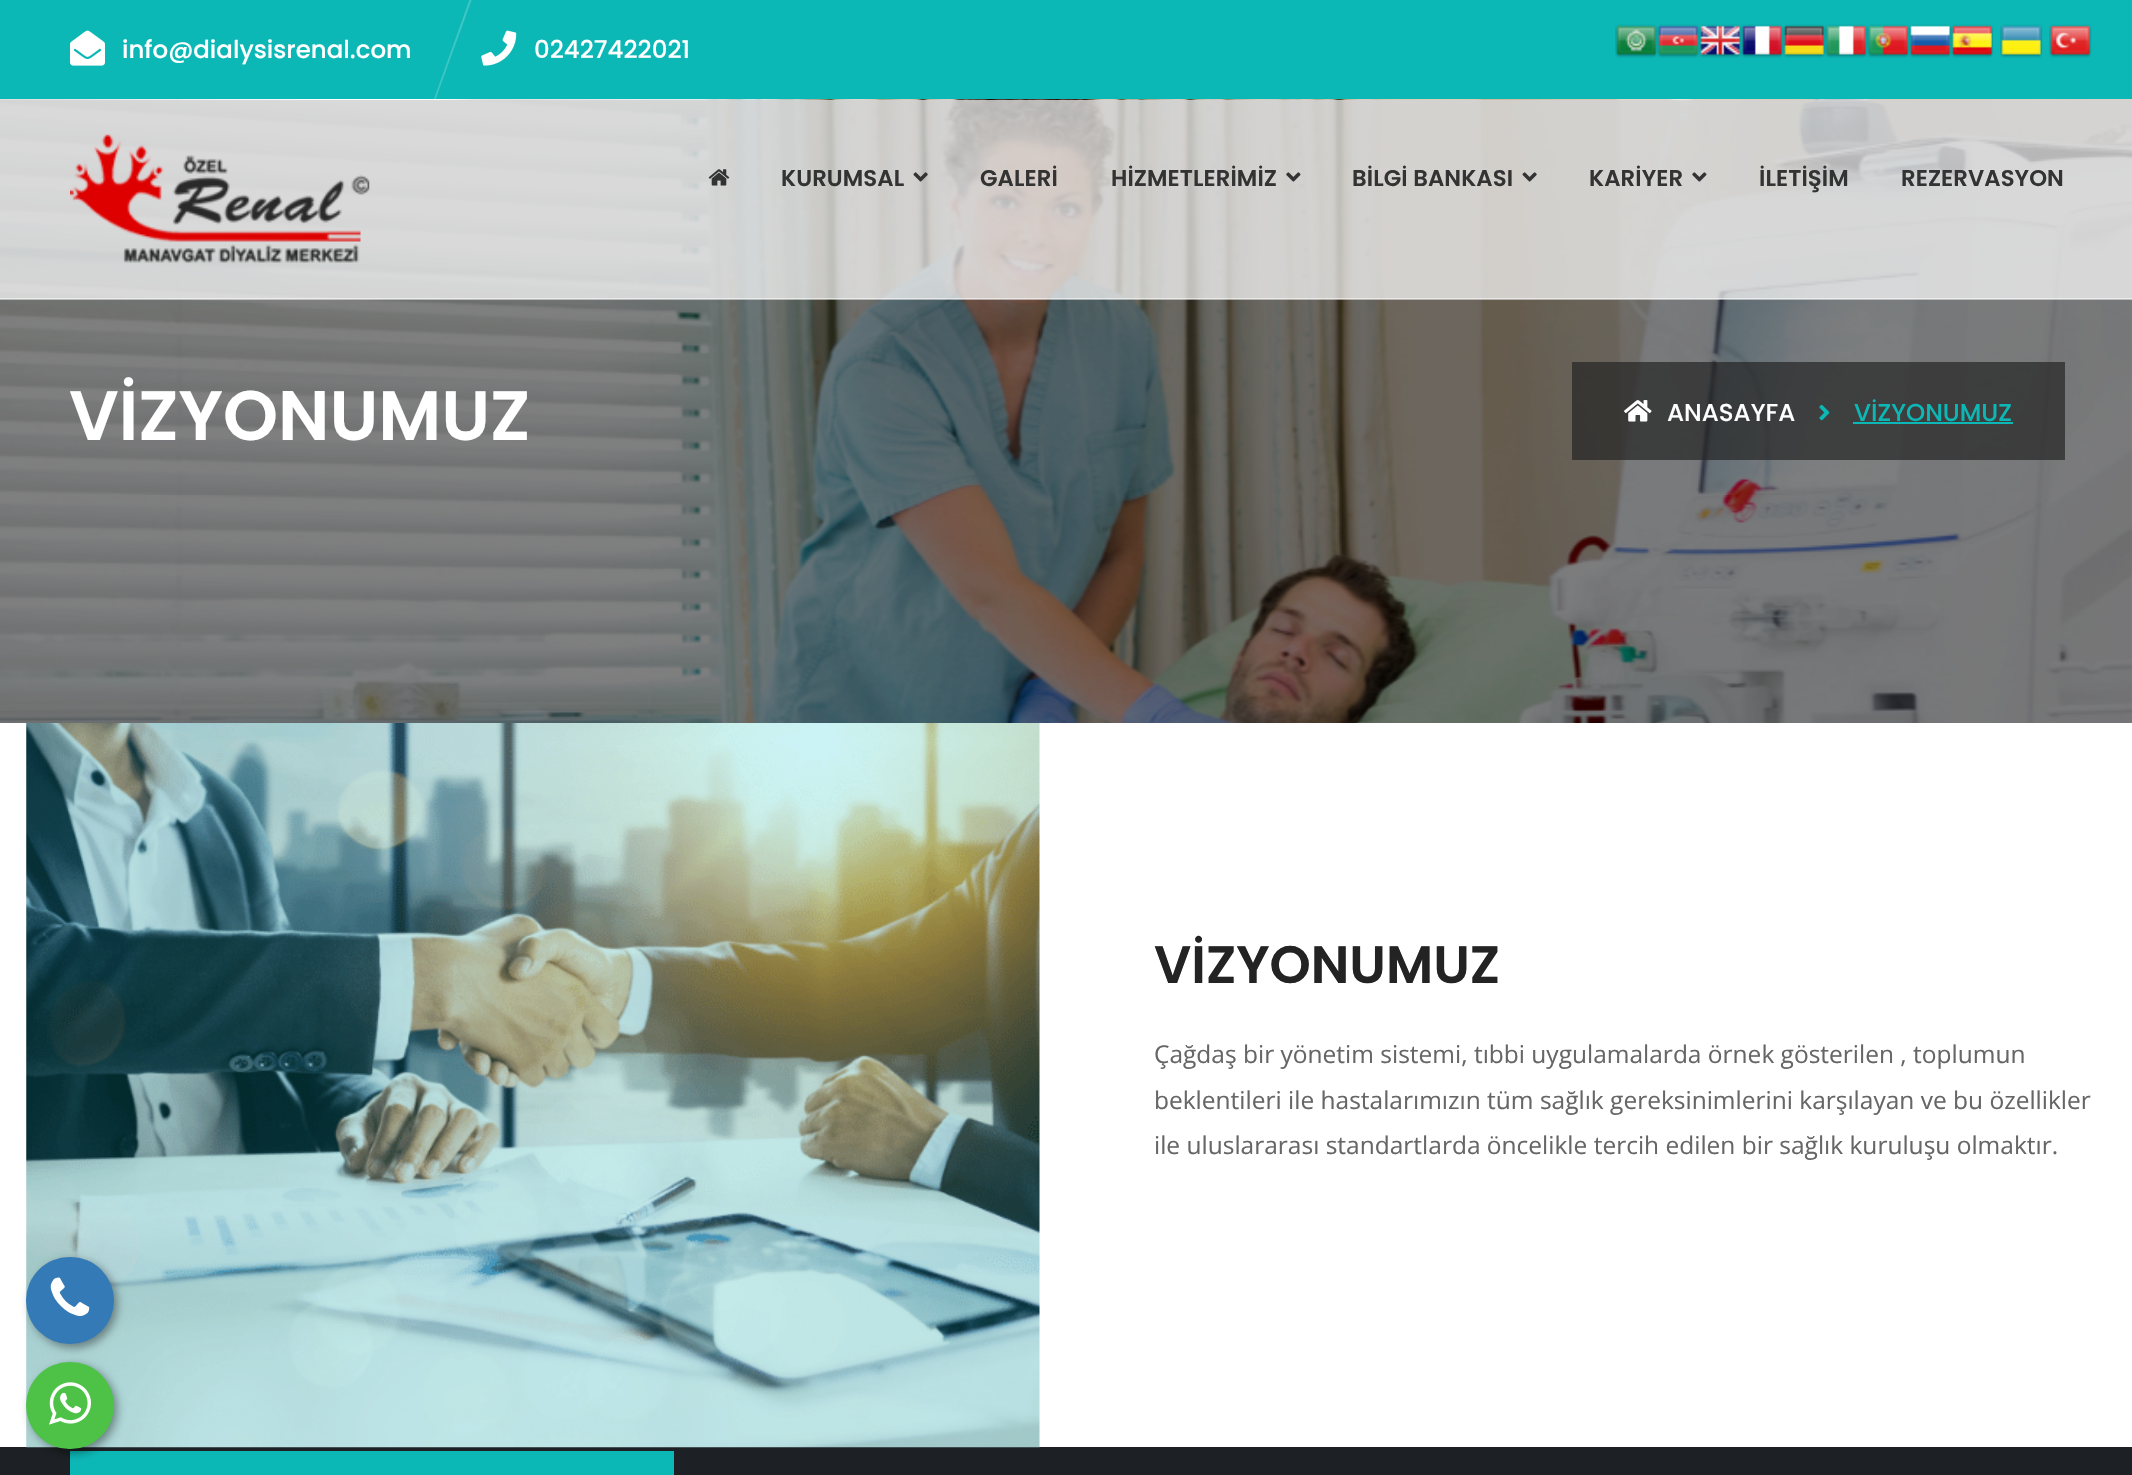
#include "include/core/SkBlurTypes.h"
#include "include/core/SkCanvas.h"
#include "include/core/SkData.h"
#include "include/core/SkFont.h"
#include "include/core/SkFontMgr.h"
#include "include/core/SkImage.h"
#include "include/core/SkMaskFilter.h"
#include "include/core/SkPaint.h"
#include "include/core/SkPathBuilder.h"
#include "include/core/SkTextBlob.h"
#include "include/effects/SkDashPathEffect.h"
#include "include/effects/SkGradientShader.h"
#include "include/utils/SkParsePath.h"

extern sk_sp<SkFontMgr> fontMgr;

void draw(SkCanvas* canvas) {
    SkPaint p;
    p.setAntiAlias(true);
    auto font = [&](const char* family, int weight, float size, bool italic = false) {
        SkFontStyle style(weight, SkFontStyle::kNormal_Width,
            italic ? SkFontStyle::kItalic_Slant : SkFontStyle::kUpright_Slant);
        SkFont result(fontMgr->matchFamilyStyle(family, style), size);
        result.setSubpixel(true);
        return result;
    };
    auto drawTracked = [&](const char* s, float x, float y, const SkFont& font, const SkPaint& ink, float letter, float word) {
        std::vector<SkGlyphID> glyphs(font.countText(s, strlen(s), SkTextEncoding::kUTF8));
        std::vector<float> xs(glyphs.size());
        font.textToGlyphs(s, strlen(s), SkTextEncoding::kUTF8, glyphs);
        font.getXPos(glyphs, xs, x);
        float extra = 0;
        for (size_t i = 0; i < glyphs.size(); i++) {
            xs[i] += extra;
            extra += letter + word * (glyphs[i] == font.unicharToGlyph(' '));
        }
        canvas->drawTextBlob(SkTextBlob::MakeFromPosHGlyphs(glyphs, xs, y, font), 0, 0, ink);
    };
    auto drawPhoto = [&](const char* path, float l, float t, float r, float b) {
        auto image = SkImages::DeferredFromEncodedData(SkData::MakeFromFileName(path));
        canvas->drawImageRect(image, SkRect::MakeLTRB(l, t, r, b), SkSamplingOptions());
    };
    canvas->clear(0xFFFFFFFF);
    p.setColor(0xFF0CB8B6);
    canvas->drawRect(SkRect::MakeLTRB(0, 0, 2132, 100), p);
    drawPhoto("media/1.png", 70, 30, 105, 66);
    auto font1 = font("Poppins", 500, 24.5f);
    p.setColor(0xFFFFFFFF);
    canvas->drawString("info@dialysisrenal.com", 122, 58, font1, p);
    p.setColor(0xFF3DC6C5);
    canvas->drawPath(SkPathBuilder().moveTo(474, -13).lineTo(476, -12).lineTo(416, 153).lineTo(415, 152).close().detach(), p);
    drawPhoto("media/2.png", 481, 30, 517, 66);
    p.setColor(0xFFFFFFFF);
    canvas->drawString("02427422021", 534, 58, font1, p);
    drawPhoto("media/3.png", 1615, 24, 1658, 58);
    drawPhoto("media/4.png", 1657, 24, 1700, 58);
    drawPhoto("media/5.png", 1699, 24, 1742, 58);
    drawPhoto("media/6.png", 1741, 24, 1784, 58);
    drawPhoto("media/7.png", 1783, 24, 1826, 58);
    drawPhoto("media/8.png", 1825, 24, 1868, 58);
    drawPhoto("media/9.png", 1867, 24, 1910, 58);
    drawPhoto("media/10.png", 1909, 24, 1952, 58);
    drawPhoto("media/11.png", 1951, 24, 1994, 58);
    drawPhoto("media/12.png", 2000, 24, 2043, 58);
    drawPhoto("media/13.png", 2049, 24, 2092, 58);
    drawPhoto("media/20.png", 0, 99, 2132, 723);
    p.setColor(0xB3FFFFFF);
    canvas->drawRect(SkRect::MakeLTRB(0, 100, 2132, 299), p);
    p.setColor(0x80FFFFFF);
    canvas->drawRect(SkRect::MakeLTRB(0, 298, 2132, 300), p);
    drawPhoto("media/14.png", 70, 134, 370, 263);
    drawPhoto("media/15.png", 708, 169, 730, 186);
    auto font2 = font("Poppins", 600, 22.75f);
    p.setColor(0xFF333333);
    drawTracked("KURUMSAL", 781, 186, font2, p, 0.1f, 0);
    drawPhoto("media/16.png", 913, 172, 928, 182);
    drawTracked("GALERİ", 980, 186, font2, p, 0.1f, 0);
    drawTracked("HİZMETLERİMİZ", 1111, 186, font2, p, 0.1f, 0);
    drawPhoto("media/17.png", 1286, 172, 1301, 182);
    drawTracked("BİLGİ BANKASI", 1352, 186, font2, p, 0.1f, 0);
    drawPhoto("media/18.png", 1522, 172, 1537, 182);
    drawTracked("KARİYER", 1589, 186, font2, p, 0.1f, 0);
    drawPhoto("media/19.png", 1692, 172, 1707, 182);
    drawTracked("İLETİŞİM", 1759, 186, font2, p, 0.1f, 0);
    drawTracked("REZERVASYON", 1901, 186, font2, p, 0.1f, 0);
    auto font3 = font("Poppins", 600, 70);
    p.setColor(0xFFFFFFFF);
    canvas->drawString("VİZYONUMUZ", 69, 440, font3, p);
    p.setColor(0xB3232323);
    canvas->drawRect(SkRect::MakeLTRB(1572, 362, 2065, 460), p);
    drawPhoto("media/21.png", 1624, 400, 1652, 422);
    p.setColor(0xFFFFFFFF);
    canvas->drawString("ANASAYFA", 1667, 421, font1, p);
    drawPhoto("media/22.png", 1819, 404, 1830, 421);
    p.setColor(0xFF0CB8B6);
    canvas->drawString("VİZYONUMUZ", 1854, 421, font1, p);
    canvas->drawRect(SkRect::MakeLTRB(1853, 422, 2013, 424), p);
    p.setColor(0xFF1D2024);
    canvas->drawRect(SkRect::MakeLTRB(0, 1447, 2132, 1475), p);
    drawPhoto("media/23.png", 26, 723, 1040, 1448);
    auto font4 = font("Poppins", 600, 52.5f);
    p.setColor(0xFF232323);
    canvas->drawString("VİZYONUMUZ", 1154, 983, font4, p);
    auto font5 = font("Open Sans", 400, 24.5f);
    p.setColor(0xFF666666);
    {
        const struct { const char* s; float x, y; } items[] = {
            {"Çağdaş bir yönetim sistemi, tıbbi uygulamalarda örnek gösterilen , toplumun", 1154, 1063},
            {"beklentileri ile hastalarımızın tüm sağlık gereksinimlerini karşılayan ve bu özellikler", 1154, 1109},
            {"ile uluslararası standartlarda öncelikle tercih edilen bir sağlık kuruluşu olmaktır.", 1154, 1154},
        };
        for (auto [s, x, y] : items) {
            canvas->drawString(s, x, y, font5, p);
        }
    }
    p.setColor(0x66000000);
    p.setMaskFilter(SkMaskFilter::MakeBlur(kNormal_SkBlurStyle, 5));
    canvas->drawRoundRect(SkRect::MakeLTRB(30, 1260, 117, 1348), 43.5f, 43.5f, p);
    p.setMaskFilter(nullptr);
    p.setColor(0xFF337AB7);
    canvas->drawRoundRect(SkRect::MakeLTRB(26, 1257, 114, 1344), 43.5f, 43.5f, p);
    drawPhoto("media/24.png", 50, 1277, 90, 1316);
    p.setColor(0xFF0CB8B6);
    canvas->drawRect(SkRect::MakeLTRB(70, 1451, 674, 1475), p);
    p.setColor(0x66000000);
    p.setMaskFilter(SkMaskFilter::MakeBlur(kNormal_SkBlurStyle, 5));
    canvas->drawRoundRect(SkRect::MakeLTRB(30, 1365, 117, 1453), 43.5f, 43.5f, p);
    p.setMaskFilter(nullptr);
    p.setColor(0xFF4DC247);
    canvas->drawRoundRect(SkRect::MakeLTRB(26, 1362, 114, 1449), 43.5f, 43.5f, p);
    drawPhoto("media/25.png", 49, 1382, 91, 1425);
}
